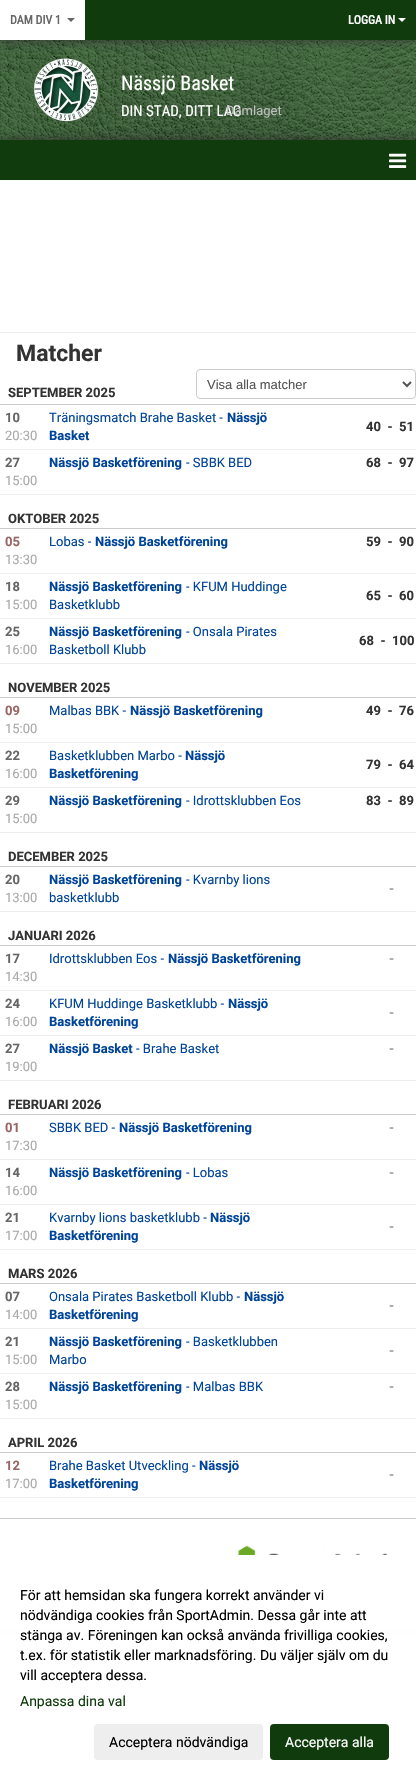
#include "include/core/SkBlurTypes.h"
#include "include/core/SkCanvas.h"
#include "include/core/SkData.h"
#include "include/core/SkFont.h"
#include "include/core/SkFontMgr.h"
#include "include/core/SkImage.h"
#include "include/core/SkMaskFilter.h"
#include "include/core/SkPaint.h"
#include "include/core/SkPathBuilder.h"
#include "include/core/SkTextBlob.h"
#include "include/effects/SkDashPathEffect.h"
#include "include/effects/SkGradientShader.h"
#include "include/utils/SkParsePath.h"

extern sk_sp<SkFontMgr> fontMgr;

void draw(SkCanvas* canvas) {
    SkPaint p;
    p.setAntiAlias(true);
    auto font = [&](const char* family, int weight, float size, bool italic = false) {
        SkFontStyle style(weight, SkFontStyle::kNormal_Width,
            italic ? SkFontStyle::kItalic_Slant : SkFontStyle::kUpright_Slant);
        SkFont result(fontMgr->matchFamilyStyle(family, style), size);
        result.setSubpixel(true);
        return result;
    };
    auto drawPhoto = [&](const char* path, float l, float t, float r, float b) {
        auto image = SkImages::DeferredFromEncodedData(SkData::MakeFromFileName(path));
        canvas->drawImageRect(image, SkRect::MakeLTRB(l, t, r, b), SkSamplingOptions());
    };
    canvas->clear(0xFFFFFFFF);
    drawPhoto("media/1.png", 0, 40, 416, 140);
    p.setColor(0xFF333333);
    p.setMaskFilter(SkMaskFilter::MakeBlur(kNormal_SkBlurStyle, 5));
    canvas->drawRect(SkRect::MakeLTRB(0, 0, 416, 40), p);
    p.setMaskFilter(nullptr);
    p.setColor(0xFF103B0C);
    canvas->drawRect(SkRect::MakeLTRB(85, 0, 416, 40), p);
    p.setColor(0xFFFFFFFF);
    canvas->drawRect(SkRect::MakeLTRB(0, 0, 85, 40), p);
    auto font1 = font("Roboto Condensed", 700, 12);
    p.setColor(0xFF666666);
    canvas->drawString("DAM DIV 1", 10, 24, font1, p);
    canvas->drawPath(SkPathBuilder().moveTo(67, 18).lineTo(75, 18).lineTo(71, 22).close().detach(), p);
    p.setColor(0xFFFFFFFF);
    canvas->drawString("LOGGA IN", 348, 24, font1, p);
    canvas->drawPath(SkPathBuilder().moveTo(398, 18).lineTo(406, 18).lineTo(402, 22).close().detach(), p);
    drawPhoto("media/2.png", 34, 58, 98, 122);
    auto font2 = font("Roboto Condensed", 400, 20);
    canvas->drawString("Nässjö Basket", 121, 90, font2, p);
    auto font3 = font("Roboto Condensed", 400, 15);
    canvas->drawString("DIN STAD, DITT LAG", 121, 116, font3, p);
    auto font4 = font("Roboto", 400, 13);
    p.setColor(0xFFBFBFBF);
    canvas->drawString("Damlaget", 226, 115, font4, p);
    p.setColor(0xFF333333);
    p.setMaskFilter(SkMaskFilter::MakeBlur(kNormal_SkBlurStyle, 5));
    canvas->drawRect(SkRect::MakeLTRB(0, 140, 416, 1619), p);
    p.setMaskFilter(nullptr);
    p.setColor(0xFFFFFFFF);
    canvas->drawRect(SkRect::MakeLTRB(0, 180, 416, 1518), p);
    p.setColor(0xFF103B0C);
    canvas->drawRect(SkRect::MakeLTRB(0, 140, 416, 180), p);
    drawPhoto("media/3.png", 389, 153, 407, 168);
    p.setColor(0xFFEEEEEE);
    canvas->drawRect(SkRect::MakeLTRB(0, 332, 416, 333), p);
    auto font5 = font("Roboto", 700, 23);
    p.setColor(0xFF333333);
    canvas->drawString("Matcher", 16, 361, font5, p);
    p.setStyle(SkPaint::kStroke_Style);
    p.setStrokeWidth(1);
    p.setColor(0xFFCCCCCC);
    canvas->drawRoundRect(SkRect::MakeLTRB(196.5f, 369.5f, 415.5f, 398.5f), 3.5f, 3.5f, p);
    p.setStrokeWidth(2);
    p.setColor(0xFF555555);
    canvas->drawPath(SkPathBuilder().moveTo(403, 382).lineTo(407, 386).lineTo(411, 382).detach(), p);
    auto font6 = font("Liberation Sans", 400, 13);
    p.setStyle(SkPaint::kFill_Style);
    canvas->drawString("Visa alla matcher", 207, 389, font6, p);
    auto font7 = font("Roboto", 700, 13);
    p.setColor(0xFF333333);
    canvas->drawString("SEPTEMBER 2025", 8, 397, font7, p);
    p.setColor(0xFFCCCCCC);
    canvas->drawRect(SkRect::MakeLTRB(0, 404, 416, 405), p);
    p.setColor(0xFFEEEEEE);
    canvas->drawRect(SkRect::MakeLTRB(0, 449, 416, 450), p);
    p.setColor(0xFF666666);
    canvas->drawString("10", 5, 422, font7, p);
    p.setColor(0xFFAAAAAA);
    canvas->drawString("20:30", 5, 440, font4, p);
    p.setColor(0xFF004499);
    canvas->drawString("Träningsmatch Brahe Basket -", 49, 422, font4, p);
    canvas->drawString("Nässjö", 227, 422, font7, p);
    canvas->drawString("Basket", 49, 440, font7, p);
    p.setColor(0xFF333333);
    canvas->drawString("40  -  51", 366, 431, font7, p);
    p.setColor(0xFFEEEEEE);
    canvas->drawRect(SkRect::MakeLTRB(0, 494, 416, 495), p);
    p.setColor(0xFF666666);
    canvas->drawString("27", 5, 467, font7, p);
    p.setColor(0xFFAAAAAA);
    canvas->drawString("15:00", 5, 485, font4, p);
    p.setColor(0xFF004499);
    canvas->drawString("Nässjö Basketförening", 49, 467, font7, p);
    canvas->drawString("- SBBK BED", 186, 467, font4, p);
    p.setColor(0xFF333333);
    canvas->drawString("68  -  97", 366, 467, font7, p);
    canvas->drawString("OKTOBER 2025", 8, 523, font7, p);
    p.setColor(0xFFCCCCCC);
    canvas->drawRect(SkRect::MakeLTRB(0, 528, 416, 529), p);
    p.setColor(0xFFEEEEEE);
    canvas->drawRect(SkRect::MakeLTRB(0, 573, 416, 574), p);
    p.setColor(0xFF996666);
    canvas->drawString("05", 5, 546, font7, p);
    p.setColor(0xFFAAAAAA);
    canvas->drawString("13:30", 5, 564, font4, p);
    p.setColor(0xFF004499);
    canvas->drawString("Lobas -", 49, 546, font4, p);
    canvas->drawString("Nässjö Basketförening", 95, 546, font7, p);
    p.setColor(0xFF333333);
    canvas->drawString("59  -  90", 366, 546, font7, p);
    p.setColor(0xFFEEEEEE);
    canvas->drawRect(SkRect::MakeLTRB(0, 618, 416, 619), p);
    p.setColor(0xFF666666);
    canvas->drawString("18", 5, 591, font7, p);
    p.setColor(0xFFAAAAAA);
    canvas->drawString("15:00", 5, 609, font4, p);
    p.setColor(0xFF004499);
    canvas->drawString("Nässjö Basketförening", 49, 591, font7, p);
    canvas->drawString("- KFUM Huddinge", 186, 591, font4, p);
    canvas->drawString("Basketklubb", 49, 609, font4, p);
    p.setColor(0xFF333333);
    canvas->drawString("65  -  60", 366, 600, font7, p);
    p.setColor(0xFFEEEEEE);
    canvas->drawRect(SkRect::MakeLTRB(0, 663, 416, 664), p);
    p.setColor(0xFF666666);
    canvas->drawString("25", 5, 636, font7, p);
    p.setColor(0xFFAAAAAA);
    canvas->drawString("16:00", 5, 654, font4, p);
    p.setColor(0xFF004499);
    canvas->drawString("Nässjö Basketförening", 49, 636, font7, p);
    canvas->drawString("- Onsala Pirates", 186, 636, font4, p);
    canvas->drawString("Basketboll Klubb", 49, 654, font4, p);
    p.setColor(0xFF333333);
    canvas->drawString("68  -  100", 359, 645, font7, p);
    canvas->drawString("NOVEMBER 2025", 8, 692, font7, p);
    p.setColor(0xFFCCCCCC);
    canvas->drawRect(SkRect::MakeLTRB(0, 697, 416, 698), p);
    p.setColor(0xFFEEEEEE);
    canvas->drawRect(SkRect::MakeLTRB(0, 742, 416, 743), p);
    p.setColor(0xFF996666);
    canvas->drawString("09", 5, 715, font7, p);
    p.setColor(0xFFAAAAAA);
    canvas->drawString("15:00", 5, 733, font4, p);
    p.setColor(0xFF004499);
    canvas->drawString("Malbas BBK -", 49, 715, font4, p);
    canvas->drawString("Nässjö Basketförening", 130, 715, font7, p);
    p.setColor(0xFF333333);
    canvas->drawString("49  -  76", 366, 715, font7, p);
    p.setColor(0xFFEEEEEE);
    canvas->drawRect(SkRect::MakeLTRB(0, 787, 416, 788), p);
    p.setColor(0xFF666666);
    canvas->drawString("22", 5, 760, font7, p);
    p.setColor(0xFFAAAAAA);
    canvas->drawString("16:00", 5, 778, font4, p);
    p.setColor(0xFF004499);
    canvas->drawString("Basketklubben Marbo -", 49, 760, font4, p);
    canvas->drawString("Nässjö", 185, 760, font7, p);
    canvas->drawString("Basketförening", 49, 778, font7, p);
    p.setColor(0xFF333333);
    canvas->drawString("79  -  64", 366, 769, font7, p);
    p.setColor(0xFFEEEEEE);
    canvas->drawRect(SkRect::MakeLTRB(0, 832, 416, 833), p);
    p.setColor(0xFF666666);
    canvas->drawString("29", 5, 805, font7, p);
    p.setColor(0xFFAAAAAA);
    canvas->drawString("15:00", 5, 823, font4, p);
    p.setColor(0xFF004499);
    canvas->drawString("Nässjö Basketförening", 49, 805, font7, p);
    canvas->drawString("- Idrottsklubben Eos", 186, 805, font4, p);
    p.setColor(0xFF333333);
    canvas->drawString("83  -  89", 366, 805, font7, p);
    canvas->drawString("DECEMBER 2025", 8, 861, font7, p);
    p.setColor(0xFFCCCCCC);
    canvas->drawRect(SkRect::MakeLTRB(0, 866, 416, 867), p);
    p.setColor(0xFFEEEEEE);
    canvas->drawRect(SkRect::MakeLTRB(0, 911, 416, 912), p);
    p.setColor(0xFF666666);
    canvas->drawString("20", 5, 884, font7, p);
    p.setColor(0xFFAAAAAA);
    canvas->drawString("13:00", 5, 902, font4, p);
    p.setColor(0xFF004499);
    canvas->drawString("Nässjö Basketförening", 49, 884, font7, p);
    canvas->drawString("- Kvarnby lions", 186, 884, font4, p);
    canvas->drawString("basketklubb", 49, 902, font4, p);
    p.setColor(0xFF999999);
    canvas->drawString("-", 389, 893, font7, p);
    p.setColor(0xFF333333);
    canvas->drawString("JANUARI 2026", 8, 940, font7, p);
    p.setColor(0xFFCCCCCC);
    canvas->drawRect(SkRect::MakeLTRB(0, 945, 416, 946), p);
    p.setColor(0xFFEEEEEE);
    canvas->drawRect(SkRect::MakeLTRB(0, 990, 416, 991), p);
    p.setColor(0xFF666666);
    canvas->drawString("17", 5, 963, font7, p);
    p.setColor(0xFFAAAAAA);
    canvas->drawString("14:30", 5, 981, font4, p);
    p.setColor(0xFF004499);
    canvas->drawString("Idrottsklubben Eos -", 49, 963, font4, p);
    canvas->drawString("Nässjö Basketförening", 168, 963, font7, p);
    p.setColor(0xFF999999);
    canvas->drawString("-", 389, 963, font7, p);
    p.setColor(0xFFEEEEEE);
    canvas->drawRect(SkRect::MakeLTRB(0, 1035, 416, 1036), p);
    p.setColor(0xFF666666);
    canvas->drawString("24", 5, 1008, font7, p);
    p.setColor(0xFFAAAAAA);
    canvas->drawString("16:00", 5, 1026, font4, p);
    p.setColor(0xFF004499);
    canvas->drawString("KFUM Huddinge Basketklubb -", 49, 1008, font4, p);
    canvas->drawString("Nässjö", 228, 1008, font7, p);
    canvas->drawString("Basketförening", 49, 1026, font7, p);
    p.setColor(0xFF999999);
    canvas->drawString("-", 389, 1017, font7, p);
    p.setColor(0xFFEEEEEE);
    canvas->drawRect(SkRect::MakeLTRB(0, 1080, 416, 1081), p);
    p.setColor(0xFF666666);
    canvas->drawString("27", 5, 1053, font7, p);
    p.setColor(0xFFAAAAAA);
    canvas->drawString("19:00", 5, 1071, font4, p);
    p.setColor(0xFF004499);
    canvas->drawString("Nässjö Basket", 49, 1053, font7, p);
    canvas->drawString("- Brahe Basket", 136, 1053, font4, p);
    p.setColor(0xFF999999);
    canvas->drawString("-", 389, 1053, font7, p);
    p.setColor(0xFF333333);
    canvas->drawString("FEBRUARI 2026", 8, 1109, font7, p);
    p.setColor(0xFFCCCCCC);
    canvas->drawRect(SkRect::MakeLTRB(0, 1114, 416, 1115), p);
    p.setColor(0xFFEEEEEE);
    canvas->drawRect(SkRect::MakeLTRB(0, 1159, 416, 1160), p);
    p.setColor(0xFF996666);
    canvas->drawString("01", 5, 1132, font7, p);
    p.setColor(0xFFAAAAAA);
    canvas->drawString("17:30", 5, 1150, font4, p);
    p.setColor(0xFF004499);
    canvas->drawString("SBBK BED -", 49, 1132, font4, p);
    canvas->drawString("Nässjö Basketförening", 119, 1132, font7, p);
    p.setColor(0xFF999999);
    canvas->drawString("-", 389, 1132, font7, p);
    p.setColor(0xFFEEEEEE);
    canvas->drawRect(SkRect::MakeLTRB(0, 1204, 416, 1205), p);
    p.setColor(0xFF666666);
    canvas->drawString("14", 5, 1177, font7, p);
    p.setColor(0xFFAAAAAA);
    canvas->drawString("16:00", 5, 1195, font4, p);
    p.setColor(0xFF004499);
    canvas->drawString("Nässjö Basketförening", 49, 1177, font7, p);
    canvas->drawString("- Lobas", 186, 1177, font4, p);
    p.setColor(0xFF999999);
    canvas->drawString("-", 389, 1177, font7, p);
    p.setColor(0xFFEEEEEE);
    canvas->drawRect(SkRect::MakeLTRB(0, 1249, 416, 1250), p);
    p.setColor(0xFF666666);
    canvas->drawString("21", 5, 1222, font7, p);
    p.setColor(0xFFAAAAAA);
    canvas->drawString("17:00", 5, 1240, font4, p);
    p.setColor(0xFF004499);
    canvas->drawString("Kvarnby lions basketklubb -", 49, 1222, font4, p);
    canvas->drawString("Nässjö", 210, 1222, font7, p);
    canvas->drawString("Basketförening", 49, 1240, font7, p);
    p.setColor(0xFF999999);
    canvas->drawString("-", 389, 1231, font7, p);
    p.setColor(0xFF333333);
    canvas->drawString("MARS 2026", 8, 1278, font7, p);
    p.setColor(0xFFCCCCCC);
    canvas->drawRect(SkRect::MakeLTRB(0, 1283, 416, 1284), p);
    p.setColor(0xFFEEEEEE);
    canvas->drawRect(SkRect::MakeLTRB(0, 1328, 416, 1329), p);
    p.setColor(0xFF666666);
    canvas->drawString("07", 5, 1301, font7, p);
    p.setColor(0xFFAAAAAA);
    canvas->drawString("14:00", 5, 1319, font4, p);
    p.setColor(0xFF004499);
    canvas->drawString("Onsala Pirates Basketboll Klubb -", 49, 1301, font4, p);
    canvas->drawString("Nässjö", 244, 1301, font7, p);
    canvas->drawString("Basketförening", 49, 1319, font7, p);
    p.setColor(0xFF999999);
    canvas->drawString("-", 389, 1310, font7, p);
    p.setColor(0xFFEEEEEE);
    canvas->drawRect(SkRect::MakeLTRB(0, 1373, 416, 1374), p);
    p.setColor(0xFF666666);
    canvas->drawString("21", 5, 1346, font7, p);
    p.setColor(0xFFAAAAAA);
    canvas->drawString("15:00", 5, 1364, font4, p);
    p.setColor(0xFF004499);
    canvas->drawString("Nässjö Basketförening", 49, 1346, font7, p);
    canvas->drawString("- Basketklubben", 186, 1346, font4, p);
    canvas->drawString("Marbo", 49, 1364, font4, p);
    p.setColor(0xFF999999);
    canvas->drawString("-", 389, 1355, font7, p);
    p.setColor(0xFFEEEEEE);
    canvas->drawRect(SkRect::MakeLTRB(0, 1418, 416, 1419), p);
    p.setColor(0xFF666666);
    canvas->drawString("28", 5, 1391, font7, p);
    p.setColor(0xFFAAAAAA);
    canvas->drawString("15:00", 5, 1409, font4, p);
    p.setColor(0xFF004499);
    canvas->drawString("Nässjö Basketförening", 49, 1391, font7, p);
    canvas->drawString("- Malbas BBK", 186, 1391, font4, p);
    p.setColor(0xFF999999);
    canvas->drawString("-", 389, 1391, font7, p);
    p.setColor(0xFF333333);
    canvas->drawString("APRIL 2026", 8, 1447, font7, p);
    p.setColor(0xFFCCCCCC);
    canvas->drawRect(SkRect::MakeLTRB(0, 1452, 416, 1453), p);
    p.setColor(0xFFEEEEEE);
    canvas->drawRect(SkRect::MakeLTRB(0, 1497, 416, 1498), p);
    p.setColor(0xFF996666);
    canvas->drawString("12", 5, 1470, font7, p);
    p.setColor(0xFFAAAAAA);
    canvas->drawString("17:00", 5, 1488, font4, p);
    p.setColor(0xFF004499);
    canvas->drawString("Brahe Basket Utveckling -", 49, 1470, font4, p);
    canvas->drawString("Nässjö", 199, 1470, font7, p);
    canvas->drawString("Basketförening", 49, 1488, font7, p);
    p.setColor(0xFF999999);
    canvas->drawString("-", 389, 1479, font7, p);
    p.setColor(0xFFFFFFFF);
    canvas->drawRect(SkRect::MakeLTRB(0, 1519, 416, 1630), p);
    p.setColor(0xFFCCCCCC);
    canvas->drawRect(SkRect::MakeLTRB(0, 1518, 416, 1519), p);
    drawPhoto("media/4.png", 238, 1545, 388, 1555);
    auto font8 = font("Roboto", 400, 14);
    p.setColor(0xFF000000);
    {
        const struct { const char* s; float x, y; } items[] = {
            {"För att hemsidan ska fungera korrekt använder vi", 20, 1600},
            {"nödvändiga cookies från SportAdmin. Dessa går inte att", 20, 1620},
            {"stänga av. Föreningen kan också använda frivilliga cookies,", 20, 1640},
            {"t.ex. för statistik eller marknadsföring. Du väljer själv om du", 20, 1660},
            {"vill acceptera dessa.", 20, 1680},
        };
        for (auto [s, x, y] : items) {
            canvas->drawString(s, x, y, font8, p);
        }
    }
    p.setColor(0xFF103B0C);
    canvas->drawString("Anpassa dina val", 20, 1706, font8, p);
    p.setColor(0xFFEEEEEE);
    canvas->drawRoundRect(SkRect::MakeLTRB(94, 1724, 263, 1760), 4, 4, p);
    p.setColor(0xFF000000);
    canvas->drawString("Acceptera nödvändiga", 109, 1747, font8, p);
    p.setColor(0xFF103B0C);
    canvas->drawRoundRect(SkRect::MakeLTRB(270, 1724, 389, 1760), 4, 4, p);
    p.setColor(0xFFFFFFFF);
    canvas->drawString("Acceptera alla", 285, 1747, font8, p);
}
